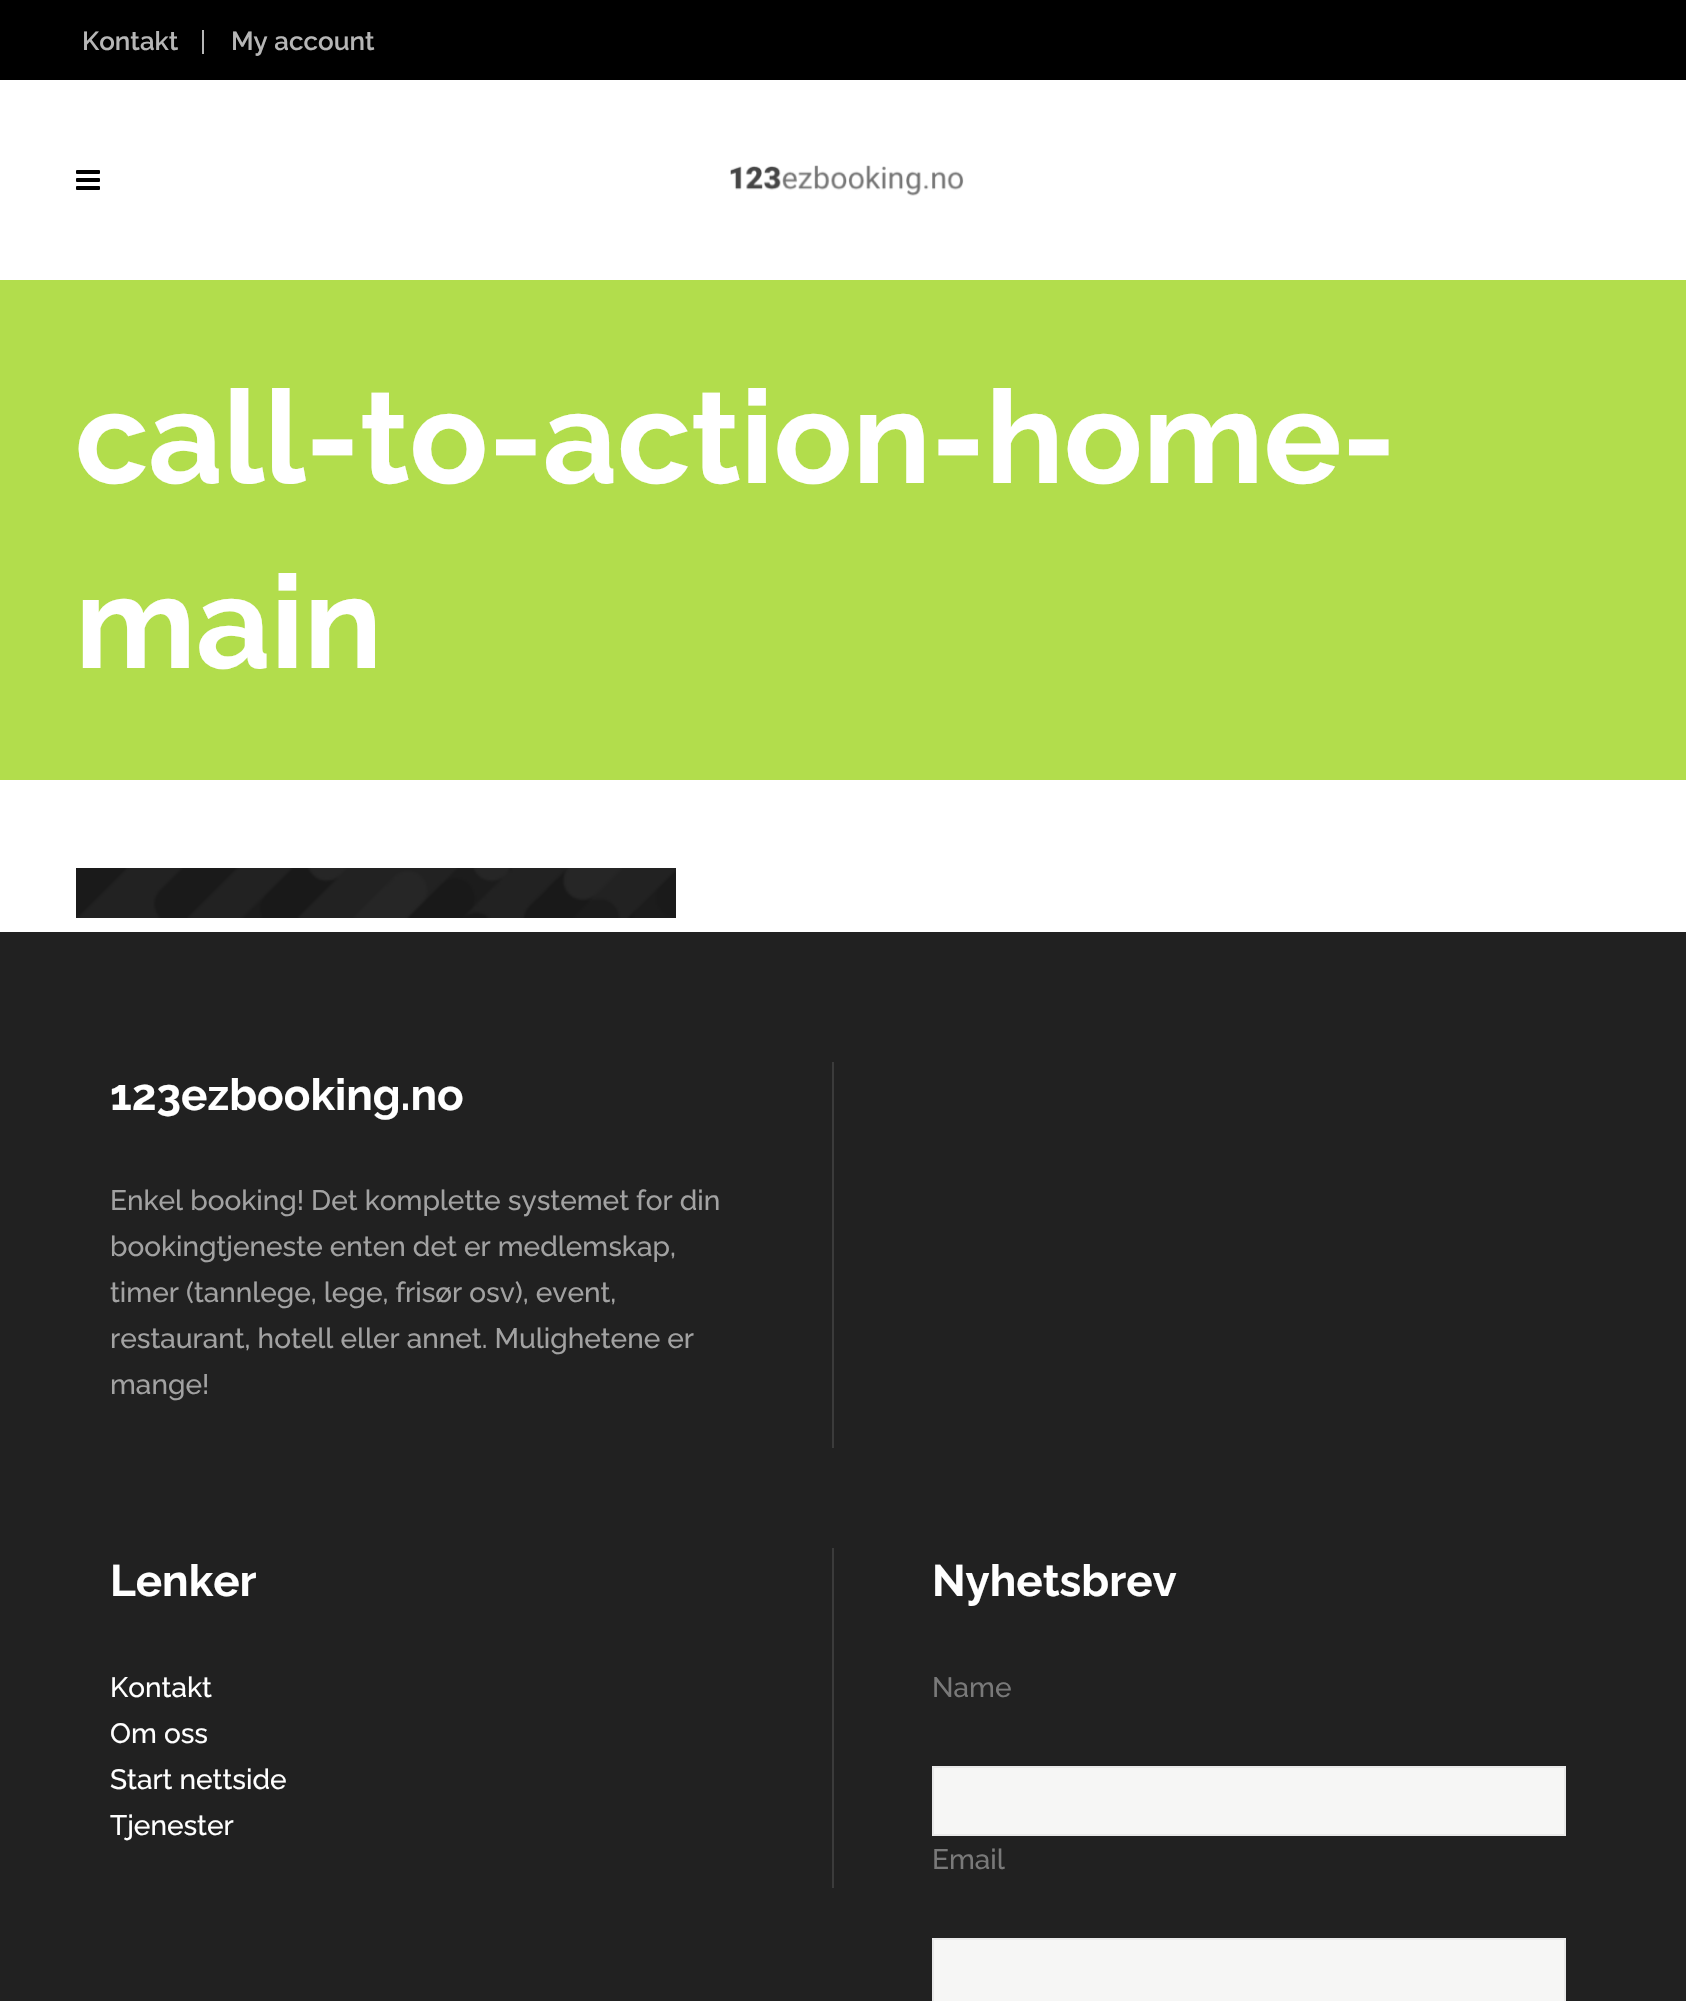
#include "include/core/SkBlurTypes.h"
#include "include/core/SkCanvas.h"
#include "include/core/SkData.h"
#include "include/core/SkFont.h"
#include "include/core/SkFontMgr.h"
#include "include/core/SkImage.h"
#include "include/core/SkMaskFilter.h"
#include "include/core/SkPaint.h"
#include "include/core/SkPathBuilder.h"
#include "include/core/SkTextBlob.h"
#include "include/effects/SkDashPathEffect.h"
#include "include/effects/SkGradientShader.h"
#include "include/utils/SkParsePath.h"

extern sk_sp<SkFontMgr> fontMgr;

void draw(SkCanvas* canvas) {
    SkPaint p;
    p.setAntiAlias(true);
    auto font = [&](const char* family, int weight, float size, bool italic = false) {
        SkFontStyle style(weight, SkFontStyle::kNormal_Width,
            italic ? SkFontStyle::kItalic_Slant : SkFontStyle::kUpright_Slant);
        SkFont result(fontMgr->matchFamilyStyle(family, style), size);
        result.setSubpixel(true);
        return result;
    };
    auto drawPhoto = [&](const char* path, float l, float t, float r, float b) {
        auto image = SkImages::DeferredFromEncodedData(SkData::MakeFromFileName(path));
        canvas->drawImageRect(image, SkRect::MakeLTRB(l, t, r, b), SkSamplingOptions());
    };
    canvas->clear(0xFFFFFFFF);
    p.setColor(0xFF000000);
    canvas->drawRect(SkRect::MakeLTRB(0, 0, 1686, 80), p);
    auto font1 = font("Raleway", 600, 26);
    p.setColor(0xFFB6B6B6);
    canvas->drawString("Kontakt", 82, 50, font1, p);
    canvas->drawRect(SkRect::MakeLTRB(202, 30, 204, 54), p);
    canvas->drawString("My account", 231, 50, font1, p);
    drawPhoto("media/1.png", 76, 170, 100, 190);
    drawPhoto("media/2.png", 730, 165, 964, 196);
    p.setColor(0xFFB2DD4C);
    canvas->drawRect(SkRect::MakeLTRB(0, 280, 1686, 780), p);
    auto font2 = font("Raleway", 700, 130);
    p.setColor(0xFFFFFFFF);
    canvas->drawString("call-to-action-home-", 75, 483, font2, p);
    canvas->drawString("main", 75, 668, font2, p);
    drawPhoto("media/3.png", 76, 868, 676, 918);
    p.setColor(0xFF212121);
    canvas->drawRect(SkRect::MakeLTRB(0, 932, 1686, 2001), p);
    p.setColor(0xFF3B3B3B);
    canvas->drawRect(SkRect::MakeLTRB(832, 1062, 834, 1448), p);
    auto font3 = font("Raleway", 700, 44);
    p.setColor(0xFFFFFFFF);
    canvas->drawString("123ezbooking.no", 110, 1110, font3, p);
    auto font4 = font("Raleway", 500, 28);
    p.setColor(0xFFA2A2A2);
    {
        const struct { const char* s; float x, y; } items[] = {
            {"Enkel booking! Det komplette systemet for din", 110, 1210},
            {"bookingtjeneste enten det er medlemskap,", 110, 1256},
            {"timer (tannlege, lege, frisør osv), event,", 110, 1302},
            {"restaurant, hotell eller annet. Mulighetene er", 110, 1348},
            {"mange!", 110, 1394},
        };
        for (auto [s, x, y] : items) {
            canvas->drawString(s, x, y, font4, p);
        }
    }
    p.setColor(0xFF3B3B3B);
    canvas->drawRect(SkRect::MakeLTRB(832, 1548, 834, 1888), p);
    p.setColor(0xFFFFFFFF);
    canvas->drawString("Lenker", 110, 1596, font3, p);
    {
        const struct { const char* s; float x, y; } items[] = {
            {"Kontakt", 110, 1697},
            {"Om oss", 110, 1743},
            {"Start nettside", 110, 1789},
            {"Tjenester", 110, 1835},
        };
        for (auto [s, x, y] : items) {
            canvas->drawString(s, x, y, font4, p);
        }
    }
    canvas->drawString("Nyhetsbrev", 932, 1596, font3, p);
    p.setColor(0xFF797979);
    canvas->drawString("Name", 932, 1697, font4, p);
    p.setColor(0xFFF6F6F5);
    canvas->drawRect(SkRect::MakeLTRB(933, 1767, 1565, 1835), p);
    p.setStyle(SkPaint::kStroke_Style);
    p.setStrokeWidth(2);
    p.setColor(0xFFE9E9E9);
    canvas->drawRect(SkRect::MakeLTRB(933, 1767, 1565, 1835), p);
    p.setStyle(SkPaint::kFill_Style);
    p.setColor(0xFF797979);
    canvas->drawString("Email", 932, 1869, font4, p);
    p.setColor(0xFFF6F6F5);
    canvas->drawRect(SkRect::MakeLTRB(933, 1939, 1565, 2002), p);
    p.setStyle(SkPaint::kStroke_Style);
    p.setColor(0xFFE9E9E9);
    canvas->drawRect(SkRect::MakeLTRB(933, 1939, 1565, 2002), p);
}
